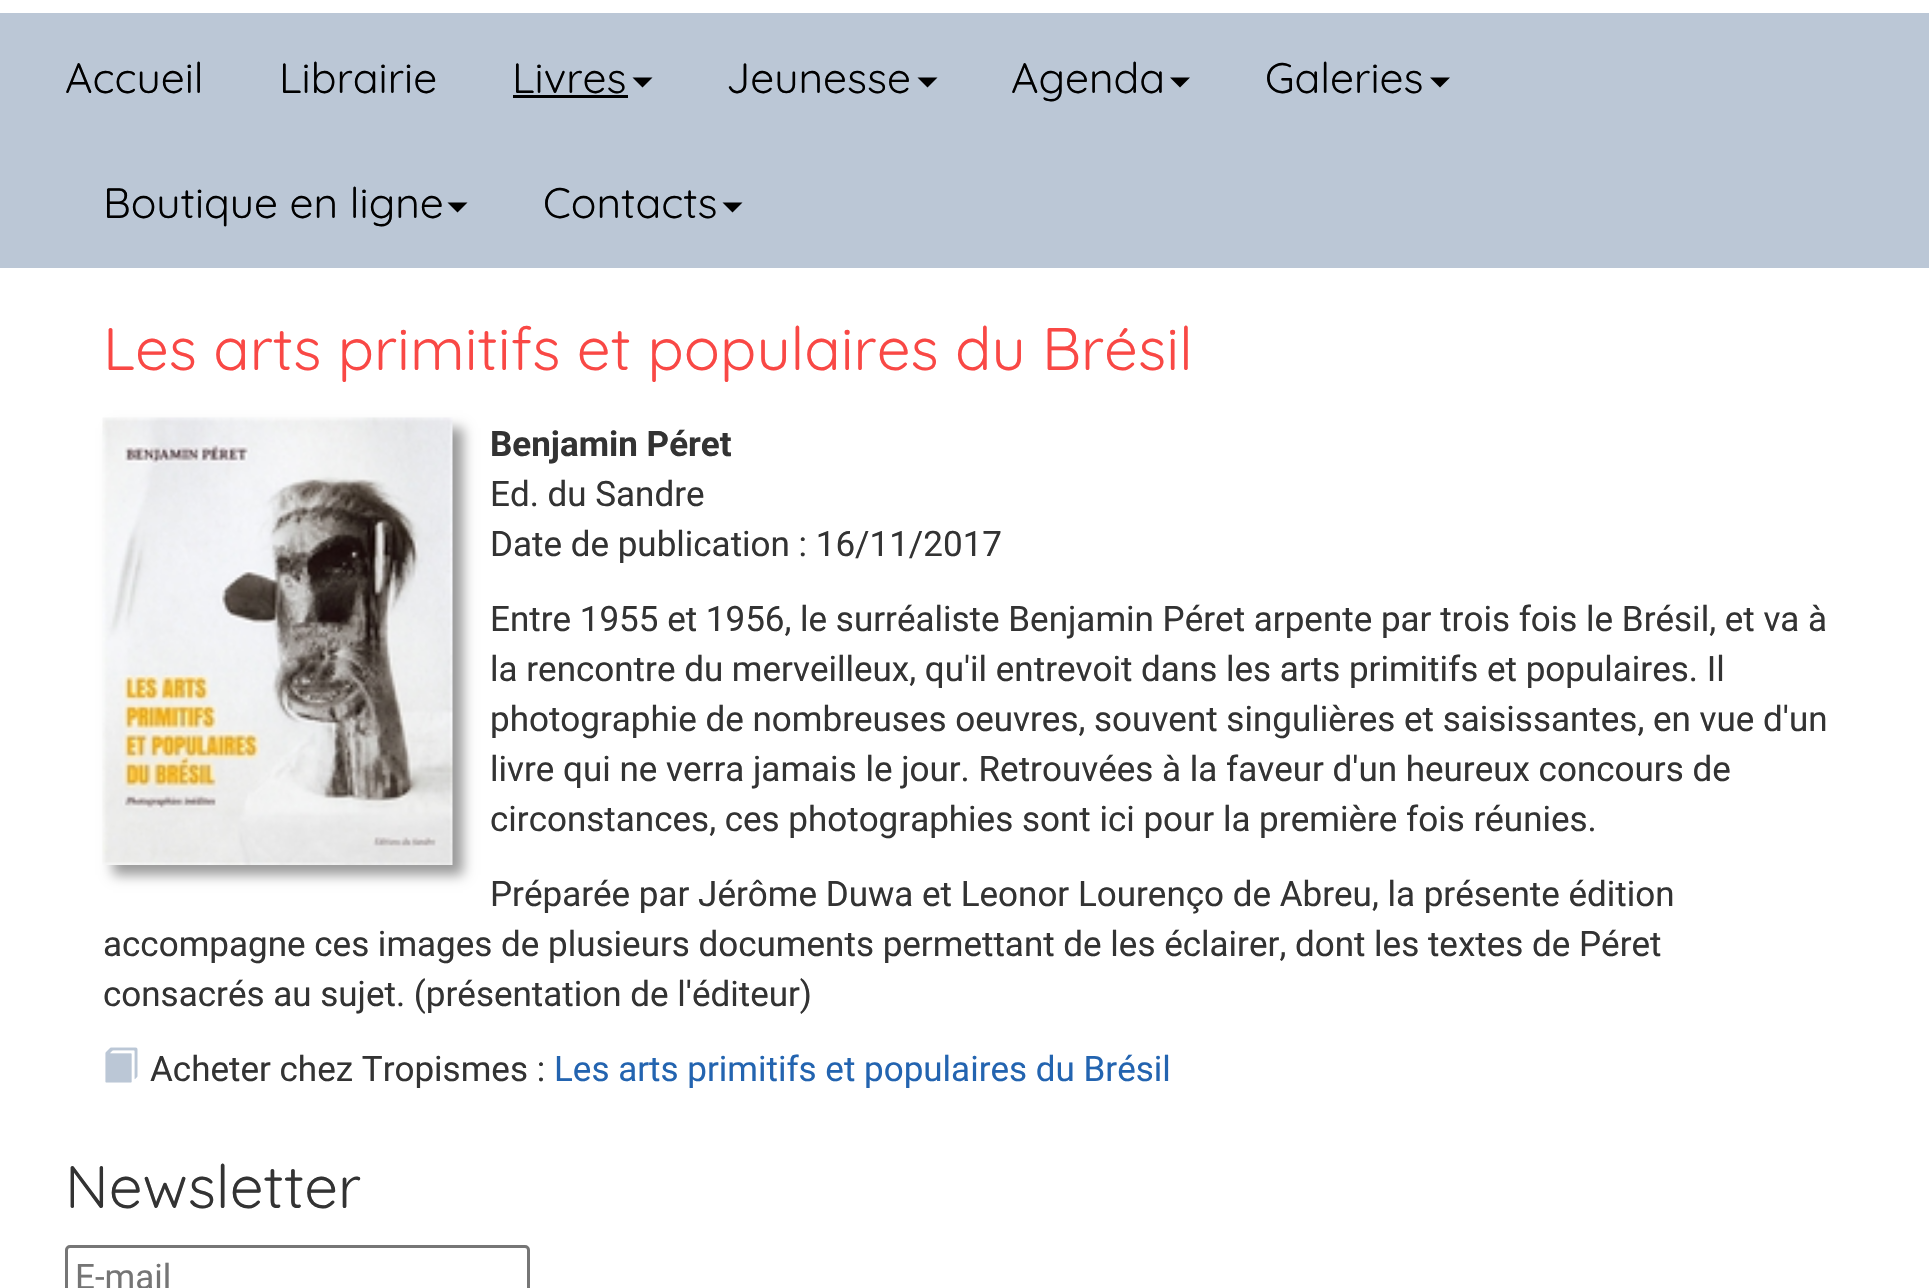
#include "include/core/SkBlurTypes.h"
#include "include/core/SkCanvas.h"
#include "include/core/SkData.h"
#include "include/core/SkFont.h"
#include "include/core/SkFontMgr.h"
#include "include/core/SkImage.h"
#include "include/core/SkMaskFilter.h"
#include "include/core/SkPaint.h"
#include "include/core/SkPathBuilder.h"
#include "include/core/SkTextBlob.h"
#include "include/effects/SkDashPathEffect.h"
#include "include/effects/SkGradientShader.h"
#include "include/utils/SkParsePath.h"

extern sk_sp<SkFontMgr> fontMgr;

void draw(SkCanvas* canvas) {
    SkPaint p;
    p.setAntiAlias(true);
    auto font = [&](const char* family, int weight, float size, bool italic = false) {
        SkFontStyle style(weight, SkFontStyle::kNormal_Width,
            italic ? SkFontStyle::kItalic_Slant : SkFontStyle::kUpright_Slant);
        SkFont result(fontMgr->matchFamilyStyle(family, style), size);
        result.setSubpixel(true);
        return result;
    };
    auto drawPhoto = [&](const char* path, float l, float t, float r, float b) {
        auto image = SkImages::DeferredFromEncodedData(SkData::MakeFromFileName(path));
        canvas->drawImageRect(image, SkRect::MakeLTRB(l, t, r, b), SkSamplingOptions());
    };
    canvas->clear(0xFFFFFFFF);
    p.setColor(0xFFBBC7D6);
    canvas->drawRect(SkRect::MakeLTRB(0, 13, 1929, 268), p);
    auto font1 = font("Quicksand", 300, 42.5f);
    p.setColor(0xFF000000);
    {
        const struct { const char* s; float x, y; } items[] = {
            {"Accueil", 65, 93},
            {"Librairie", 279, 93},
            {"Livres", 512, 93},
        };
        for (auto [s, x, y] : items) {
            canvas->drawString(s, x, y, font1, p);
        }
    }
    canvas->drawRect(SkRect::MakeLTRB(513, 95, 628, 98), p);
    canvas->drawPath(SkPathBuilder().moveTo(632.5f, 77.5f).lineTo(652.5f, 77.5f).lineTo(642.5f, 87.5f).close().detach(), p);
    canvas->drawString("Jeunesse", 726, 93, font1, p);
    canvas->drawPath(SkPathBuilder().moveTo(917.5f, 77.5f).lineTo(937.5f, 77.5f).lineTo(927.5f, 87.5f).close().detach(), p);
    canvas->drawString("Agenda", 1011, 93, font1, p);
    canvas->drawPath(SkPathBuilder().moveTo(1170, 77.5f).lineTo(1190, 77.5f).lineTo(1180, 87.5f).close().detach(), p);
    canvas->drawString("Galeries", 1265, 93, font1, p);
    canvas->drawPath(SkPathBuilder().moveTo(1430, 77.5f).lineTo(1450, 77.5f).lineTo(1440, 87.5f).close().detach(), p);
    canvas->drawString("Boutique en ligne", 103, 218, font1, p);
    canvas->drawPath(SkPathBuilder().moveTo(447.5f, 202.5f).lineTo(467.5f, 202.5f).lineTo(457.5f, 212.5f).close().detach(), p);
    canvas->drawString("Contacts", 543, 218, font1, p);
    canvas->drawPath(SkPathBuilder().moveTo(722.5f, 202.5f).lineTo(742.5f, 202.5f).lineTo(732.5f, 212.5f).close().detach(), p);
    auto font2 = font("Quicksand", 300, 60);
    p.setColor(0xFFF94845);
    canvas->drawString("Les arts primitifs et populaires du Brésil", 103, 370, font2, p);
    p.setColor(0x66000000);
    p.setMaskFilter(SkMaskFilter::MakeBlur(kNormal_SkBlurStyle, 6));
    canvas->drawRect(SkRect::MakeLTRB(113, 428, 463, 875), p);
    p.setMaskFilter(nullptr);
    drawPhoto("media/1.png", 102, 417, 453, 865);
    auto font3 = font("Roboto", 700, 35);
    p.setColor(0xFF333333);
    canvas->drawString("Benjamin Péret", 490, 456, font3, p);
    auto font4 = font("Roboto", 400, 35);
    {
        const struct { const char* s; float x, y; } items[] = {
            {"Ed. du Sandre", 490, 506},
            {"Date de publication : 16/11/2017", 490, 556},
            {"Entre 1955 et 1956, le surréaliste Benjamin Péret arpente par trois fois le Brésil, et va à", 490, 631},
            {"la rencontre du merveilleux, qu'il entrevoit dans les arts primitifs et populaires. Il", 490, 681},
            {"photographie de nombreuses oeuvres, souvent singulières et saisissantes, en vue d'un", 490, 731},
            {"livre qui ne verra jamais le jour. Retrouvées à la faveur d'un heureux concours de", 490, 781},
            {"circonstances, ces photographies sont ici pour la première fois réunies.", 490, 831},
            {"Préparée par Jérôme Duwa et Leonor Lourenço de Abreu, la présente édition", 490, 906},
            {"accompagne ces images de plusieurs documents permettant de les éclairer, dont les textes de Péret", 103, 956},
            {"consacrés au sujet. (présentation de l'éditeur)", 103, 1006},
        };
        for (auto [s, x, y] : items) {
            canvas->drawString(s, x, y, font4, p);
        }
    }
    drawPhoto("media/2.png", 105, 1047, 138, 1083);
    canvas->drawString("Acheter chez Tropismes :", 150, 1081, font4, p);
    p.setColor(0xFF2364B0);
    canvas->drawString("Les arts primitifs et populaires du Brésil", 554, 1081, font4, p);
    p.setColor(0xFF333333);
    canvas->drawString("Newsletter", 65, 1208, font2, p);
    p.setStyle(SkPaint::kStroke_Style);
    p.setStrokeWidth(3);
    p.setColor(0xFF767676);
    canvas->drawRoundRect(SkRect::MakeLTRB(66.5f, 1246.5f, 528.5f, 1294.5f), 3.5f, 3.5f, p);
    p.setStyle(SkPaint::kFill_Style);
    p.setColor(0xFF757575);
    canvas->drawString("E-mail", 75, 1289, font4, p);
}
